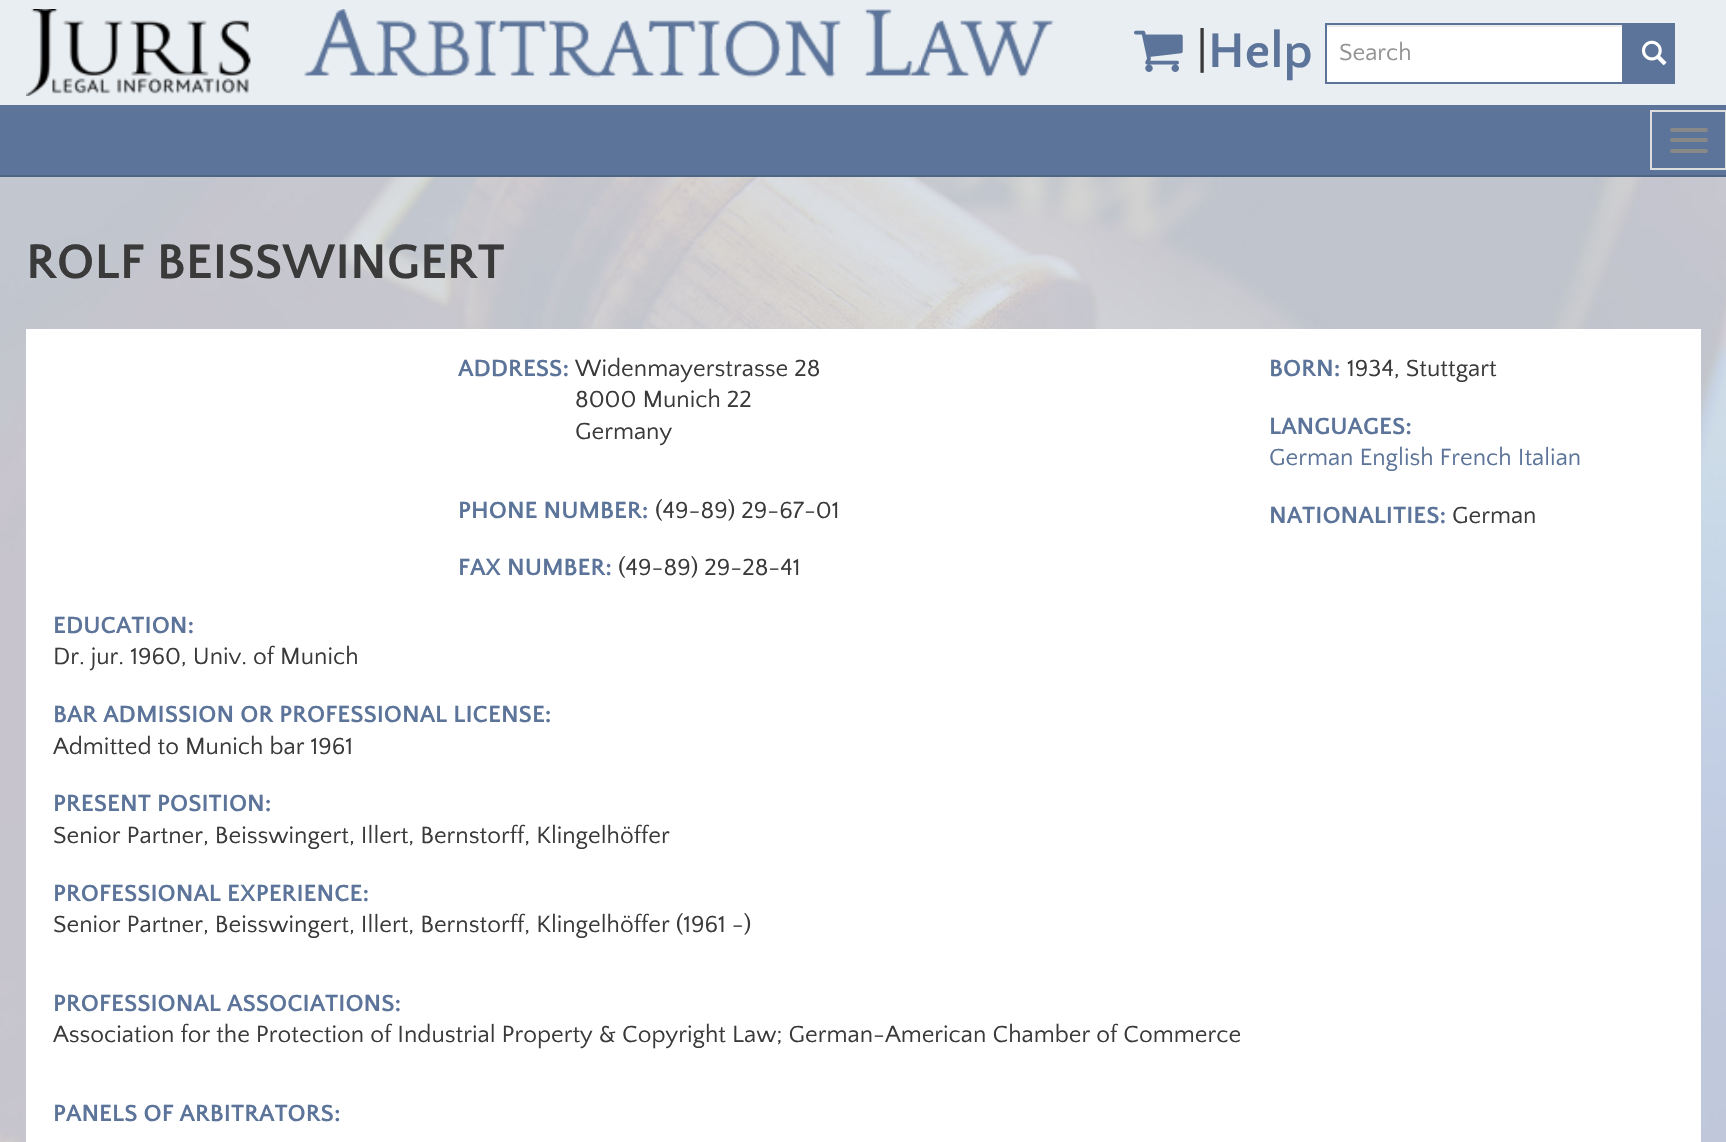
#include "include/core/SkBlurTypes.h"
#include "include/core/SkCanvas.h"
#include "include/core/SkData.h"
#include "include/core/SkFont.h"
#include "include/core/SkFontMgr.h"
#include "include/core/SkImage.h"
#include "include/core/SkMaskFilter.h"
#include "include/core/SkPaint.h"
#include "include/core/SkPathBuilder.h"
#include "include/core/SkTextBlob.h"
#include "include/effects/SkDashPathEffect.h"
#include "include/effects/SkGradientShader.h"
#include "include/utils/SkParsePath.h"

extern sk_sp<SkFontMgr> fontMgr;

void draw(SkCanvas* canvas) {
    SkPaint p;
    p.setAntiAlias(true);
    auto font = [&](const char* family, int weight, float size, bool italic = false) {
        SkFontStyle style(weight, SkFontStyle::kNormal_Width,
            italic ? SkFontStyle::kItalic_Slant : SkFontStyle::kUpright_Slant);
        SkFont result(fontMgr->matchFamilyStyle(family, style), size);
        result.setSubpixel(true);
        return result;
    };
    auto drawPhoto = [&](const char* path, float l, float t, float r, float b) {
        auto image = SkImages::DeferredFromEncodedData(SkData::MakeFromFileName(path));
        canvas->drawImageRect(image, SkRect::MakeLTRB(l, t, r, b), SkSamplingOptions());
    };
    canvas->clear(0xFFFFFFFF);
    drawPhoto("media/1.png", 0, 177, 1726, 1142);
    p.setColor(0xFFE9EEF2);
    canvas->drawRect(SkRect::MakeLTRB(0, 0, 1726, 105), p);
    drawPhoto("media/2.png", 26, 9, 1054, 96);
    drawPhoto("media/3.png", 1134, 30, 1183, 72);
    auto font1 = font("Quattrocento Sans", 400, 50.75f);
    p.setColor(0xFF3A3A3A);
    canvas->drawString("|", 1196, 67, font1, p);
    auto font2 = font("Quattrocento Sans", 700, 50.75f);
    p.setColor(0xFF5C7499);
    canvas->drawString("Help", 1208, 67, font2, p);
    p.setColor(0xFFFFFFFF);
    canvas->drawRect(SkRect::MakeLTRB(1327, 27, 1622, 82), p);
    p.setColor(0xFFECECEC);
    canvas->drawRect(SkRect::MakeLTRB(1327, 25, 1622, 27), p);
    p.setStyle(SkPaint::kStroke_Style);
    p.setStrokeWidth(2);
    p.setColor(0xFF5C7499);
    canvas->drawRect(SkRect::MakeLTRB(1326, 24, 1623, 83), p);
    auto font3 = font("Quattrocento Sans", 400, 24.5f);
    p.setStyle(SkPaint::kFill_Style);
    p.setColor(0xFF939393);
    canvas->drawString("Search", 1339, 60, font3, p);
    p.setColor(0xFF5C7499);
    canvas->drawRect(SkRect::MakeLTRB(1624, 23, 1675, 84), p);
    drawPhoto("media/4.png", 1642, 40, 1667, 66);
    canvas->drawRect(SkRect::MakeLTRB(0, 105, 1726, 175), p);
    p.setColor(0xFF506484);
    canvas->drawRect(SkRect::MakeLTRB(0, 175, 1726, 177), p);
    p.setStyle(SkPaint::kStroke_Style);
    p.setColor(0xFFDDDDDD);
    canvas->drawRect(SkRect::MakeLTRB(1651, 111, 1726, 169), p);
    p.setStyle(SkPaint::kFill_Style);
    p.setColor(0xFF888888);
    canvas->drawRoundRect(SkRect::MakeLTRB(1670, 128, 1708, 132), 2, 2, p);
    canvas->drawRoundRect(SkRect::MakeLTRB(1670, 138, 1708, 142), 2, 2, p);
    canvas->drawRoundRect(SkRect::MakeLTRB(1670, 149, 1708, 153), 2, 2, p);
    p.setColor(0xFF3A3A3A);
    canvas->drawString("ROLF BEISSWINGERT", 26, 278, font2, p);
    p.setColor(0xFFFFFFFF);
    canvas->drawRect(SkRect::MakeLTRB(26, 329, 1701, 1142), p);
    auto font4 = font("Quattrocento Sans", 700, 24.5f);
    p.setColor(0xFF5C7499);
    canvas->drawString("ADDRESS:", 458, 376, font4, p);
    p.setColor(0xFF3A3A3A);
    {
        const struct { const char* s; float x, y; } items[] = {
            {"Widenmayerstrasse 28", 575, 376},
            {"8000 Munich 22", 575, 407},
            {"Germany", 575, 439},
        };
        for (auto [s, x, y] : items) {
            canvas->drawString(s, x, y, font3, p);
        }
    }
    p.setColor(0xFF5C7499);
    canvas->drawString("PHONE NUMBER:", 458, 518, font4, p);
    p.setColor(0xFF3A3A3A);
    canvas->drawString("(49-89) 29-67-01", 655, 518, font3, p);
    p.setColor(0xFF5C7499);
    canvas->drawString("FAX NUMBER:", 458, 575, font4, p);
    p.setColor(0xFF3A3A3A);
    canvas->drawString("(49-89) 29-28-41", 618, 575, font3, p);
    p.setColor(0xFF5C7499);
    canvas->drawString("BORN:", 1269, 376, font4, p);
    p.setColor(0xFF3A3A3A);
    canvas->drawString("1934, Stuttgart", 1347, 376, font3, p);
    p.setColor(0xFF5C7499);
    canvas->drawString("LANGUAGES:", 1269, 434, font4, p);
    canvas->drawString("German English French Italian", 1269, 465, font3, p);
    canvas->drawString("NATIONALITIES:", 1269, 523, font4, p);
    p.setColor(0xFF3A3A3A);
    canvas->drawString("German", 1452, 523, font3, p);
    p.setColor(0xFF5C7499);
    canvas->drawString("EDUCATION:", 53, 633, font4, p);
    p.setColor(0xFF3A3A3A);
    canvas->drawString("Dr. jur. 1960, Univ. of Munich", 53, 664, font3, p);
    p.setColor(0xFF5C7499);
    canvas->drawString("BAR ADMISSION OR PROFESSIONAL LICENSE:", 53, 722, font4, p);
    p.setColor(0xFF3A3A3A);
    canvas->drawString("Admitted to Munich bar 1961", 53, 754, font3, p);
    p.setColor(0xFF5C7499);
    canvas->drawString("PRESENT POSITION:", 53, 811, font4, p);
    p.setColor(0xFF3A3A3A);
    canvas->drawString("Senior Partner, Beisswingert, Illert, Bernstorff, Klingelhöffer", 53, 843, font3, p);
    p.setColor(0xFF5C7499);
    canvas->drawString("PROFESSIONAL EXPERIENCE:", 53, 901, font4, p);
    p.setColor(0xFF3A3A3A);
    canvas->drawString("Senior Partner, Beisswingert, Illert, Bernstorff, Klingelhöffer (1961 -)", 53, 932, font3, p);
    p.setColor(0xFF5C7499);
    canvas->drawString("PROFESSIONAL ASSOCIATIONS:", 53, 1011, font4, p);
    p.setColor(0xFF3A3A3A);
    canvas->drawString("Association for the Protection of Industrial Property & Copyright Law; German-American Chamber of Commerce", 53, 1042, font3, p);
    p.setColor(0xFF5C7499);
    canvas->drawString("PANELS OF ARBITRATORS:", 53, 1121, font4, p);
}
